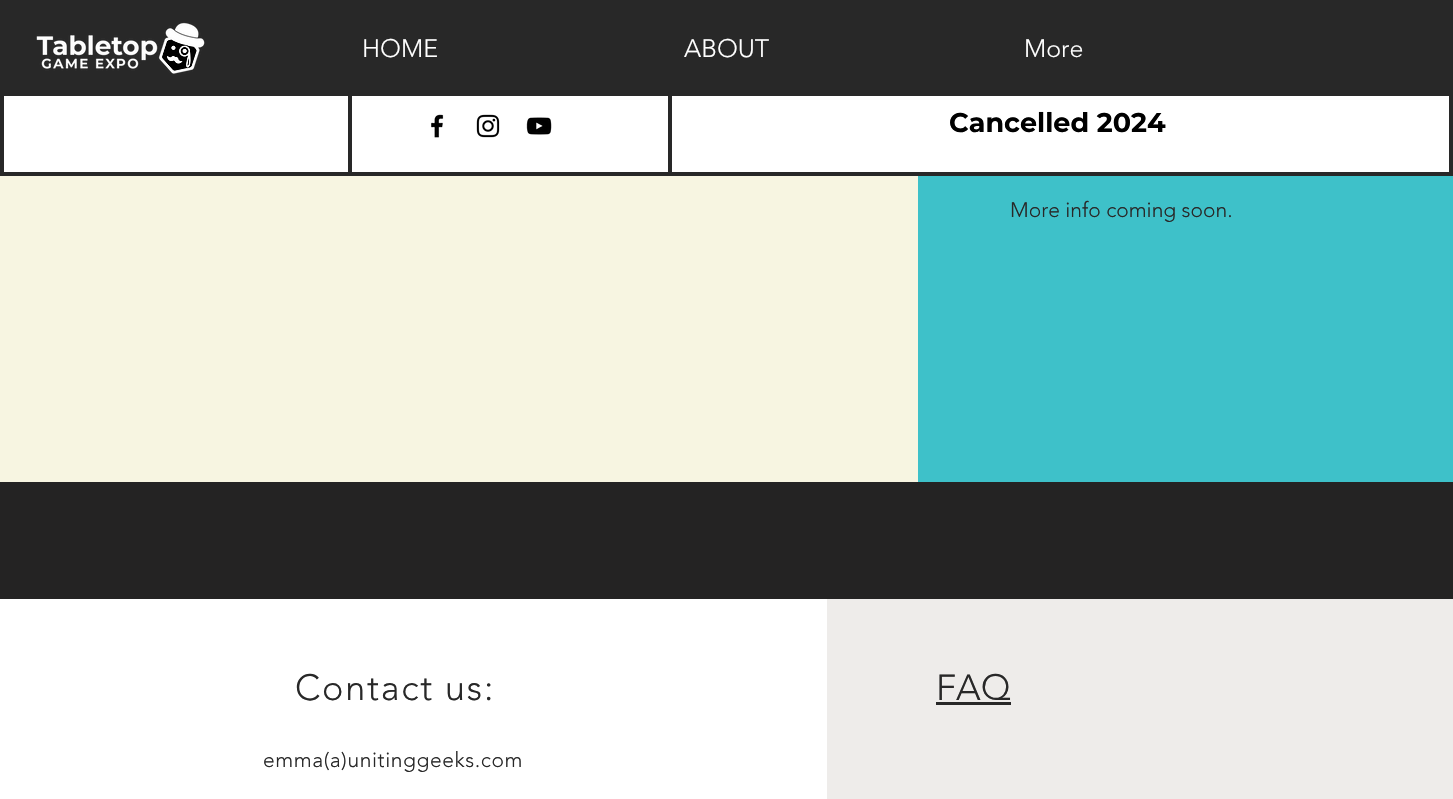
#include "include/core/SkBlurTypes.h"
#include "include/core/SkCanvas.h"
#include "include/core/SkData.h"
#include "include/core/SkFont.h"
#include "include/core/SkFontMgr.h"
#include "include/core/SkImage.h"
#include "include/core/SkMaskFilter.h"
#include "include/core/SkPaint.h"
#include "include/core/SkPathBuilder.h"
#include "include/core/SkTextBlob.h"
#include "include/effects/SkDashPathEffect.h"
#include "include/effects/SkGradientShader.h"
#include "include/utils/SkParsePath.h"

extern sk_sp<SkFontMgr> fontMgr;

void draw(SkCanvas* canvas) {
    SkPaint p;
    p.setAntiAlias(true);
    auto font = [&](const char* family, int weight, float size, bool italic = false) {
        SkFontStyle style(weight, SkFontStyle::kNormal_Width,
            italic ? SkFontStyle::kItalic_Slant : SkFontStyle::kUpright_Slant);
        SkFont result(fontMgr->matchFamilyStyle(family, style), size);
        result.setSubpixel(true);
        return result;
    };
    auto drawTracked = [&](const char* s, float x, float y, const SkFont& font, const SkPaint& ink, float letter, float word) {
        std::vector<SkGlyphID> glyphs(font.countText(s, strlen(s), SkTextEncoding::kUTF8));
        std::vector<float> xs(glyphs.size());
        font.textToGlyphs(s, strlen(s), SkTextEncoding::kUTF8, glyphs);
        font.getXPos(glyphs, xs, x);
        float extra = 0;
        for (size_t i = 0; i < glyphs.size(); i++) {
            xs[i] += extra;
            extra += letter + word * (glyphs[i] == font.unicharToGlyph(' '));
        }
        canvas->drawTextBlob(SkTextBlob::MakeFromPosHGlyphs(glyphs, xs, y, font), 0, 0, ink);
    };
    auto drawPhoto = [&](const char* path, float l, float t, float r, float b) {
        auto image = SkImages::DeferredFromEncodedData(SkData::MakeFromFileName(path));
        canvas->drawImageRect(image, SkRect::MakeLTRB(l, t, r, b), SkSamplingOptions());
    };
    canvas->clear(0xFF3EC1C9);
    p.setColor(0xFF282828);
    canvas->drawRect(SkRect::MakeLTRB(0, 0, 1453, 176), p);
    drawPhoto("media/1.png", 36, 22, 205, 74);
    auto font1 = font("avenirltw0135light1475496", 300, 25);
    p.setColor(0xFFFFFFFF);
    {
        const struct { const char* s; float x, y; } items[] = {
            {"HOME", 362, 57},
            {"ABOUT", 684, 57},
            {"More", 1024, 57},
        };
        for (auto [s, x, y] : items) {
            canvas->drawString(s, x, y, font1, p);
        }
    }
    canvas->drawRect(SkRect::MakeLTRB(4, 96, 348, 172), p);
    canvas->drawRect(SkRect::MakeLTRB(352, 96, 668, 172), p);
    drawPhoto("media/2.png", 431, 114, 444, 138);
    drawPhoto("media/3.png", 476, 114, 500, 138);
    drawPhoto("media/4.png", 526, 117, 552, 135);
    canvas->drawRect(SkRect::MakeLTRB(672, 96, 1449, 172), p);
    auto font2 = font("Montserrat", 700, 27);
    p.setColor(0xFF000000);
    canvas->drawString("Cancelled 2024", 949, 132, font2, p);
    p.setColor(0xFFF7F5E1);
    canvas->drawRect(SkRect::MakeLTRB(0, 176, 918, 482), p);
    auto font3 = font("avenirltw0135light1475496", 300, 21);
    p.setColor(0xFF282828);
    canvas->drawString("More info coming soon.", 1010, 217, font3, p);
    p.setColor(0xFF242323);
    canvas->drawRect(SkRect::MakeLTRB(0, 482, 1453, 599), p);
    p.setColor(0xFFFFFFFF);
    canvas->drawRect(SkRect::MakeLTRB(0, 599, 827, 799), p);
    auto font4 = font("avenirltw0135light1475496", 300, 36);
    p.setColor(0xFF282828);
    drawTracked("Contact us:", 295, 700, font4, p, 1.75f, 0);
    drawTracked("emma(a)unitinggeeks.com", 263, 767, font3, p, 0.6f, 0);
    p.setColor(0xFFEEECEA);
    canvas->drawRect(SkRect::MakeLTRB(827, 599, 1453, 799), p);
    p.setColor(0xFF282828);
    canvas->drawString("FAQ", 936, 700, font4, p);
    canvas->drawRect(SkRect::MakeLTRB(936, 702, 1011, 705), p);
}
